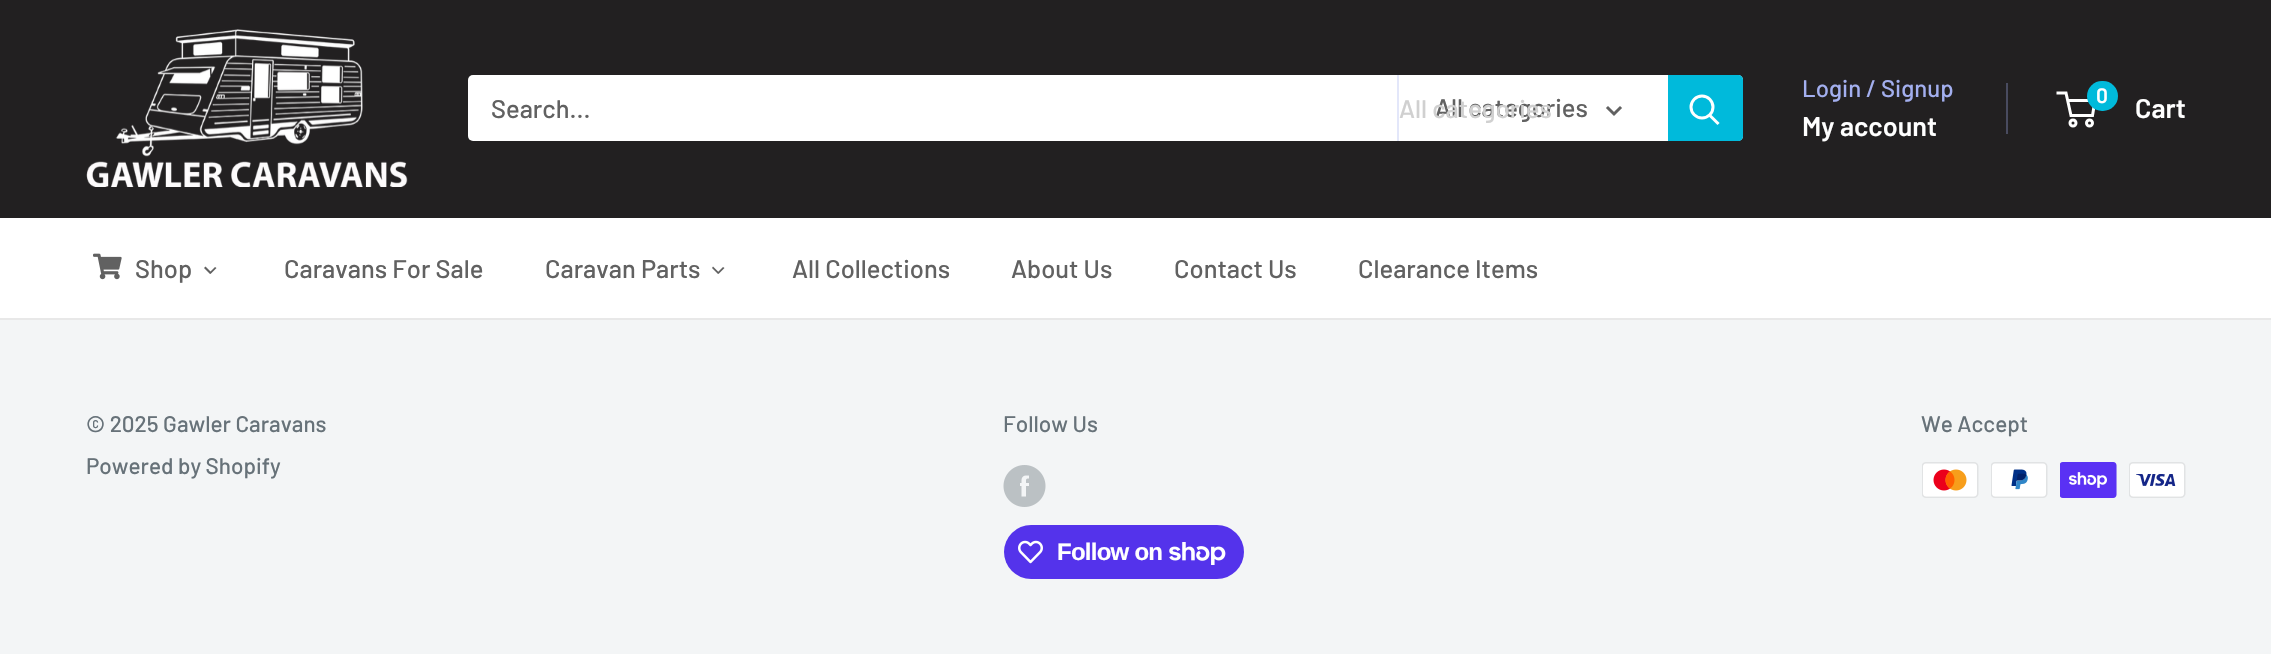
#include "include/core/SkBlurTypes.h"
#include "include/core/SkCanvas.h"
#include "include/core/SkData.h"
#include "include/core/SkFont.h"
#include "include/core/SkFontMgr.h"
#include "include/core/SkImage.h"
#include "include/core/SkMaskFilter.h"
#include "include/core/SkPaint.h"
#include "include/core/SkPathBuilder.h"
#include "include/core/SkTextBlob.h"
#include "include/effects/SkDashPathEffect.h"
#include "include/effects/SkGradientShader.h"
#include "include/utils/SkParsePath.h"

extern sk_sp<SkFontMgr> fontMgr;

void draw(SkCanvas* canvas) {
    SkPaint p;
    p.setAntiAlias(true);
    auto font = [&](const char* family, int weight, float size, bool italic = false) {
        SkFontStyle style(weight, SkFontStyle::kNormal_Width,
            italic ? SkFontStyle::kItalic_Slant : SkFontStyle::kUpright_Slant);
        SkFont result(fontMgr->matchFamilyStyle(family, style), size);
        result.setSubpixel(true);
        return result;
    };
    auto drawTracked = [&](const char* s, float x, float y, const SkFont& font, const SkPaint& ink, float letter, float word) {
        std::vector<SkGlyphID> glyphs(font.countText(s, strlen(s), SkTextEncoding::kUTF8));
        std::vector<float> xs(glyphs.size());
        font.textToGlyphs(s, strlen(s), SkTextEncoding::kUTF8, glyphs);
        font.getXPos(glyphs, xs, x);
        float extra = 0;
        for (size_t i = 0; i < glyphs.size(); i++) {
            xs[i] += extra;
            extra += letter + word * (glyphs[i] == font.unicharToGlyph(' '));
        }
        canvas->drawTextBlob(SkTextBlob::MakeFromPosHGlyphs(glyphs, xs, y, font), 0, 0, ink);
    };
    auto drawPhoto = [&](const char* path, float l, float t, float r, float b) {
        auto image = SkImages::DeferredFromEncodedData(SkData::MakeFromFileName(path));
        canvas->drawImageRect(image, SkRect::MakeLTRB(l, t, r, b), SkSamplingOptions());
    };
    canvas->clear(0xFFF3F5F6);
    p.setColor(0xFF222021);
    canvas->drawRect(SkRect::MakeLTRB(0, 0, 2271, 218), p);
    drawPhoto("media/1.png", 86, 29, 408, 187);
    p.setColor(0xFFFFFFFF);
    canvas->drawRoundRect(SkRect::MakeLTRB(468, 75, 1743, 141), 5, 5, p);
    auto font1 = font("Barlow", 500, 25.5f);
    p.setColor(0xFF616161);
    canvas->drawString("Search...", 491, 118, font1, p);
    p.setColor(0xFFE3E7FA);
    canvas->drawRect(SkRect::MakeLTRB(1397, 75, 1399, 141), p);
    p.setColor(0xFF616161);
    canvas->drawString("All categories", 1435, 117, font1, p);
    p.setStyle(SkPaint::kStroke_Style);
    p.setStrokeWidth(3);
    p.setStrokeCap(SkPaint::kSquare_Cap);
    canvas->drawPath(SkPathBuilder().moveTo(1620, 108).lineTo(1614, 114).lineTo(1608, 108).detach(), p);
    p.setStyle(SkPaint::kFill_Style);
    p.setColor(0xFFD0D0D0);
    canvas->drawString("All categories", 1399, 118, font1, p);
    p.setColor(0xFF00BADB);
    canvas->drawPath(SkPathBuilder().moveTo(1668, 75).lineTo(1738, 75).cubicTo(1741, 75, 1743, 77, 1743, 80).lineTo(1743, 136).cubicTo(1743, 139, 1741, 141, 1738, 141).lineTo(1668, 141).close().detach(), p);
    p.setStyle(SkPaint::kStroke_Style);
    p.setColor(0xFFFFFFFF);
    canvas->drawPath(SkPathBuilder().moveTo(1717.5f, 123).lineTo(1710, 115.5f).detach(), p);
    p.setStrokeCap(SkPaint::kButt_Cap);
    canvas->drawCircle(1702, 107, 11, p);
    auto font2 = font("Barlow", 500, 24);
    p.setStyle(SkPaint::kFill_Style);
    p.setColor(0xFFA3AFEF);
    canvas->drawString("Login / Signup", 1802, 97, font2, p);
    p.setColor(0xFF494B5F);
    canvas->drawRect(SkRect::MakeLTRB(2006, 83, 2008, 134), p);
    auto font3 = font("Barlow", 600, 27);
    p.setColor(0xFFFFFFFF);
    canvas->drawString("My account", 1802, 136, font3, p);
    p.setStyle(SkPaint::kStroke_Style);
    canvas->drawCircle(2073, 123, 3, p);
    canvas->drawCircle(2089.5f, 123, 3, p);
    canvas->drawPath(SkPathBuilder().moveTo(2067.5f, 100.5f).lineTo(2095, 100.5f).lineTo(2092.5f, 115.5f).lineTo(2071, 115.5f).lineTo(2066, 93).lineTo(2056.5f, 93).detach(), p);
    p.setStyle(SkPaint::kFill_Style);
    p.setColor(0xFF00BADB);
    canvas->drawRoundRect(SkRect::MakeLTRB(2087, 81, 2118, 111), 15, 15, p);
    auto font4 = font("Barlow", 600, 21);
    p.setColor(0xFFFFFFFF);
    canvas->drawString("0", 2096, 103, font4, p);
    canvas->drawString("Cart", 2135, 118, font3, p);
    canvas->drawRect(SkRect::MakeLTRB(0, 218, 2271, 318), p);
    p.setColor(0xFFE8E8E8);
    canvas->drawRect(SkRect::MakeLTRB(0, 318, 2271, 320), p);
    drawPhoto("media/2.png", 93, 253, 122, 280);
    p.setColor(0xFF616161);
    canvas->drawString("Shop", 135, 278, font1, p);
    canvas->drawPath(SkPathBuilder().moveTo(215, 267).lineTo(216.5f, 268).lineTo(210.5f, 274).lineTo(209.5f, 272.5f).close().detach(), p);
    canvas->drawPath(SkPathBuilder().moveTo(205.5f, 266.5f).lineTo(211.5f, 272.5f).lineTo(210, 274).lineTo(204, 268).close().detach(), p);
    canvas->drawString("Caravans For Sale", 284, 278, font1, p);
    canvas->drawString("Caravan Parts", 545, 278, font1, p);
    canvas->drawPath(SkPathBuilder().moveTo(723, 267).lineTo(724.5f, 268).lineTo(718.5f, 274).lineTo(717.5f, 272.5f).close().detach(), p);
    canvas->drawPath(SkPathBuilder().moveTo(713, 266.5f).lineTo(719, 272.5f).lineTo(718, 274).lineTo(712, 268).close().detach(), p);
    {
        const struct { const char* s; float x, y; } items[] = {
            {"All Collections", 792, 278},
            {"About Us", 1011, 278},
            {"Contact Us", 1174, 278},
            {"Clearance Items", 1358, 278},
        };
        for (auto [s, x, y] : items) {
            canvas->drawString(s, x, y, font1, p);
        }
    }
    auto font5 = font("Barlow", 500, 22.5f);
    p.setColor(0xFF677279);
    {
        const struct { const char* s; float x, y; } items[] = {
            {"© 2025 Gawler Caravans", 86, 432},
            {"Powered by Shopify", 86, 474},
            {"Follow Us", 1003, 432},
        };
        for (auto [s, x, y] : items) {
            canvas->drawString(s, x, y, font5, p);
        }
    }
    drawPhoto("media/3.png", 1003, 465, 1046, 507);
    p.setColor(0xFF5433EB);
    canvas->drawRoundRect(SkRect::MakeLTRB(1004, 525, 1244, 579), 27, 27, p);
    drawPhoto("media/4.png", 1018, 540, 1043, 564);
    auto font6 = font("Liberation Sans", 700, 24);
    p.setColor(0xFFFFFFFF);
    drawTracked("Follow on", 1057, 560, font6, p, -0.75f, 0);
    drawPhoto("media/5.png", 1169, 542, 1226, 565);
    p.setColor(0xFF677279);
    canvas->drawString("We Accept", 1921, 432, font5, p);
    drawPhoto("media/6.png", 1922, 462, 1979, 498);
    drawPhoto("media/7.png", 1991, 462, 2048, 498);
    drawPhoto("media/8.png", 2060, 462, 2117, 498);
    drawPhoto("media/9.png", 2129, 462, 2186, 498);
}
